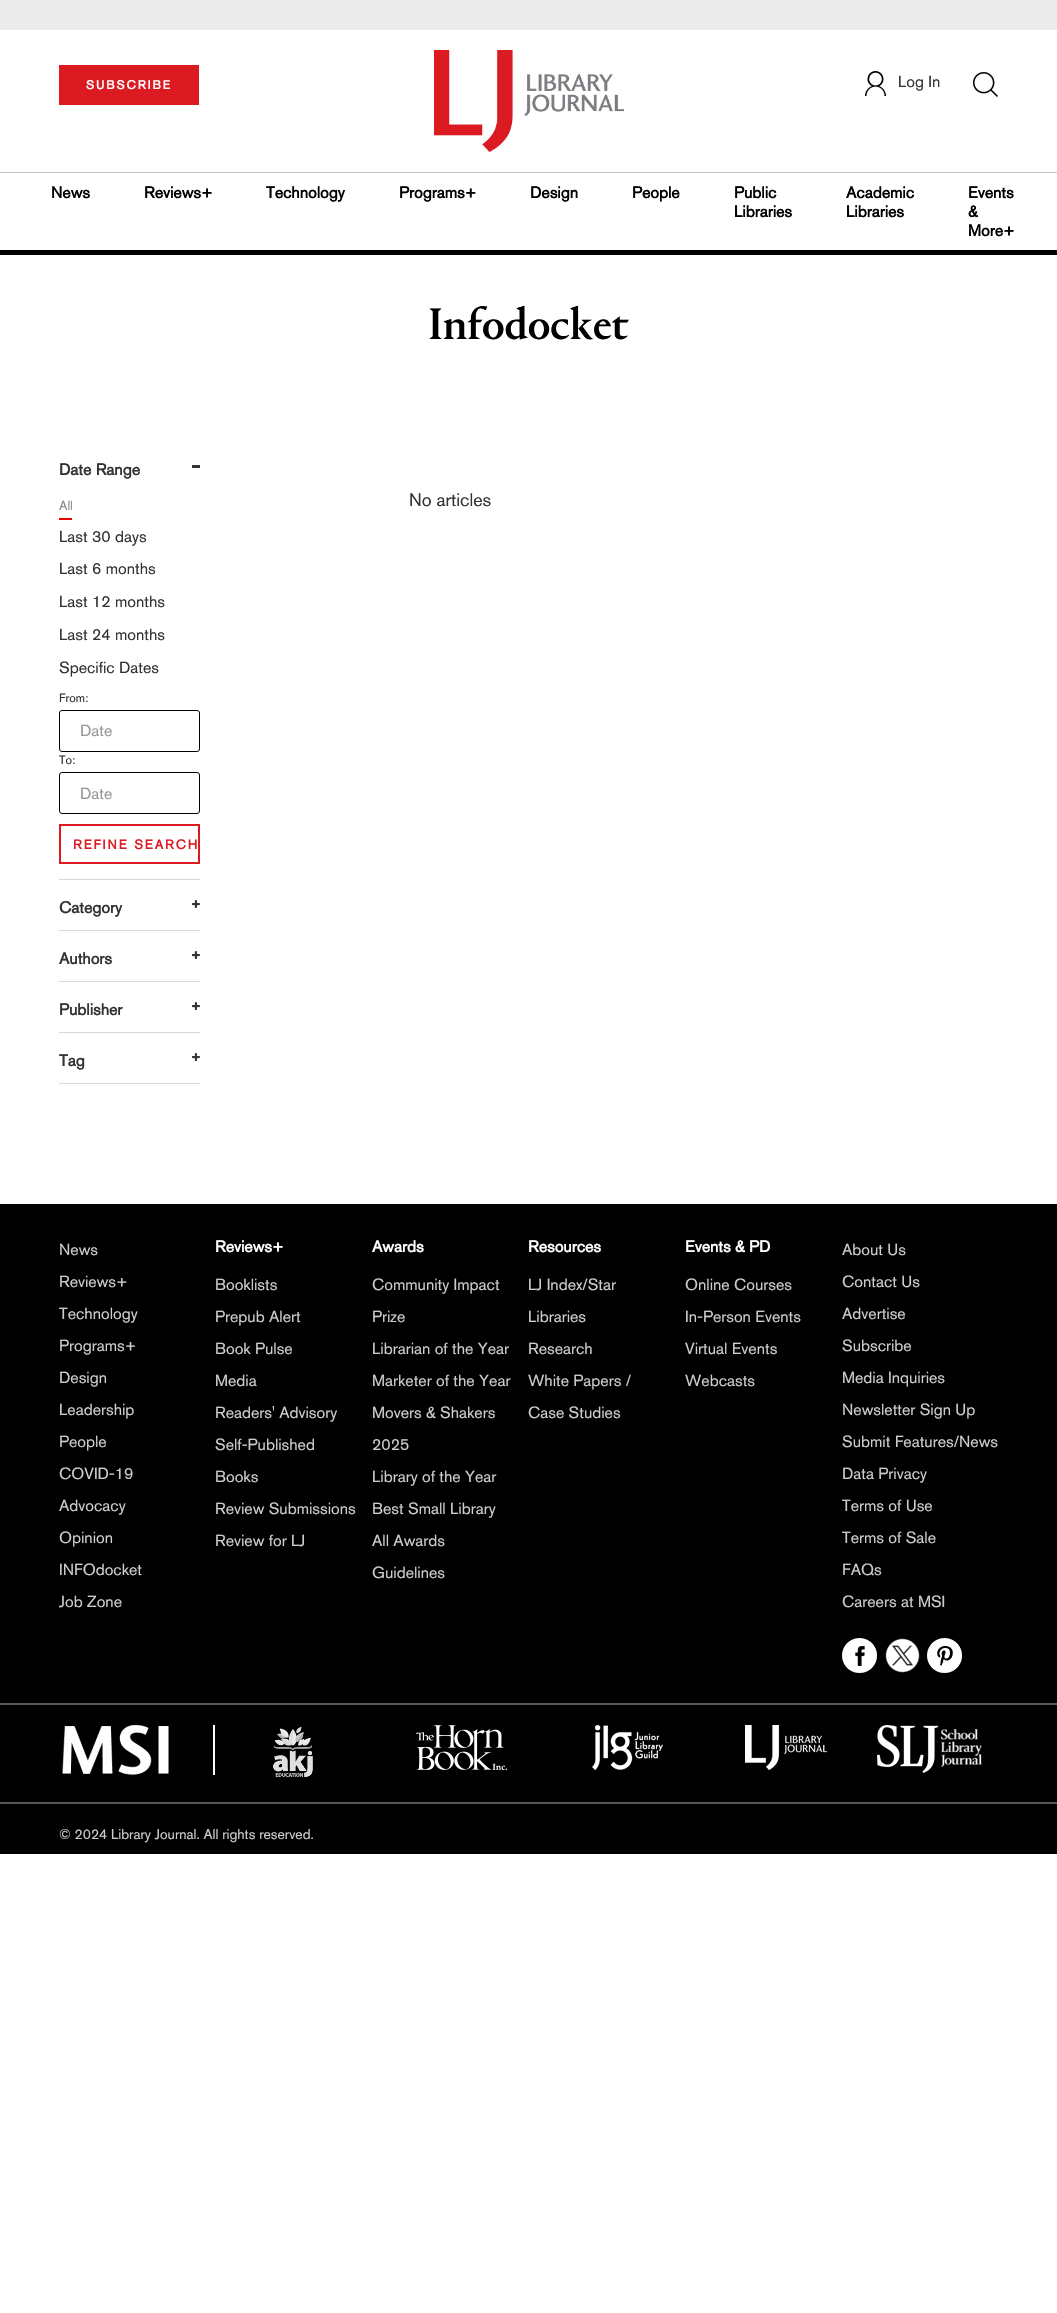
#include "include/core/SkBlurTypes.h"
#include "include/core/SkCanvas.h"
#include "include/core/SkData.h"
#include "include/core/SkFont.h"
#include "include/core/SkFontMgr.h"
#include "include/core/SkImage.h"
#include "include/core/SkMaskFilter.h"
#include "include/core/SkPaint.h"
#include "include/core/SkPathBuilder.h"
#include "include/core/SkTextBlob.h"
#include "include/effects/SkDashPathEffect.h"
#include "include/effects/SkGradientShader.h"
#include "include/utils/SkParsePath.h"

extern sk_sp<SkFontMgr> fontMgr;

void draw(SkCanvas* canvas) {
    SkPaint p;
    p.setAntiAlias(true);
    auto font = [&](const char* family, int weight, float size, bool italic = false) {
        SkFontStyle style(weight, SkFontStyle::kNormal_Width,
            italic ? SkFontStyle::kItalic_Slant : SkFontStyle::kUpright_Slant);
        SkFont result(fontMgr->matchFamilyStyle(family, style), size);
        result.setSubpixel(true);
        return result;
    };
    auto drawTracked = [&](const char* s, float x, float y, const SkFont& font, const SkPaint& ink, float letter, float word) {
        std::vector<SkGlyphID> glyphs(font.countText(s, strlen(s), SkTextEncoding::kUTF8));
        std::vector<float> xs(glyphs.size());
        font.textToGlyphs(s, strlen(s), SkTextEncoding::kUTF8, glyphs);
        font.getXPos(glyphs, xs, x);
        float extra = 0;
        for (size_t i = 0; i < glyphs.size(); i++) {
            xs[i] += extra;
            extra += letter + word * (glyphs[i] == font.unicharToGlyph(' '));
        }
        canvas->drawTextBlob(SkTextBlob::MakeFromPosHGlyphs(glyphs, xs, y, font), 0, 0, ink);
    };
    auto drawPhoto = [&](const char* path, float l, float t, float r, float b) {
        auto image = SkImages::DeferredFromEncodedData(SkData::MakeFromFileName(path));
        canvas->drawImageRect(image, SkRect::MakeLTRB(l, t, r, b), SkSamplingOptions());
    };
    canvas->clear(0xFFFFFFFF);
    p.setColor(0xFFEBEBEB);
    canvas->drawRect(SkRect::MakeLTRB(0, 0, 1057, 30), p);
    p.setColor(0xFFDB1A21);
    canvas->drawRect(SkRect::MakeLTRB(59, 65, 199, 105), p);
    auto font1 = font("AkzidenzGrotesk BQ", 700, 12);
    p.setColor(0xFFFFFFFF);
    drawTracked("SUBSCRIBE", 86, 89, font1, p, 2, 0);
    drawPhoto("media/1.png", 434, 50, 624, 152);
    drawPhoto("media/2.png", 865, 70, 888, 97);
    auto font2 = font("AkzidenzGrotesk BQ", 500, 16);
    p.setColor(0xFF333333);
    canvas->drawString("Log In", 898, 87, font2, p);
    drawPhoto("media/3.png", 973, 72, 998, 98);
    p.setColor(0xFFC5C2C2);
    canvas->drawRect(SkRect::MakeLTRB(0, 172, 1057, 173), p);
    auto font3 = font("AkzidenzGrotesk BQ", 700, 16);
    p.setColor(0xFF000000);
    {
        const struct { const char* s; float x, y; } items[] = {
            {"News", 51, 198},
            {"Reviews+", 144, 198},
            {"Technology", 266, 198},
            {"Programs+", 399, 198},
            {"Design", 530, 198},
            {"People", 632, 198},
            {"Public", 734, 198},
            {"Libraries", 734, 217},
            {"Academic", 846, 198},
            {"Libraries", 846, 217},
            {"Events", 968, 198},
            {"&", 968, 217},
            {"More+", 968, 236},
        };
        for (auto [s, x, y] : items) {
            canvas->drawString(s, x, y, font3, p);
        }
    }
    canvas->drawRect(SkRect::MakeLTRB(0, 250, 1057, 255), p);
    auto font4 = font("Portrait", 500, 46);
    canvas->drawString("Infodocket", 428, 339, font4, p);
    p.setColor(0xFFD8D8D8);
    canvas->drawRect(SkRect::MakeLTRB(59, 879, 200, 880), p);
    p.setColor(0xFF333333);
    canvas->drawString("Date Range", 59, 475, font3, p);
    canvas->drawRect(SkRect::MakeLTRB(192, 465, 200, 468), p);
    auto font5 = font("AkzidenzGrotesk BQ", 500, 13);
    p.setColor(0xFF8A8A8A);
    canvas->drawString("All", 59, 510, font5, p);
    p.setColor(0xFFEB0000);
    canvas->drawRect(SkRect::MakeLTRB(59, 518, 72, 520), p);
    p.setColor(0xFF333333);
    {
        const struct { const char* s; float x, y; } items[] = {
            {"Last 30 days", 59, 542},
            {"Last 6 months", 59, 574},
            {"Last 12 months", 59, 607},
            {"Last 24 months", 59, 640},
            {"Specific Dates", 59, 673},
        };
        for (auto [s, x, y] : items) {
            canvas->drawString(s, x, y, font2, p);
        }
    }
    auto font6 = font("AkzidenzGrotesk BQ", 500, 12);
    canvas->drawString("From:", 59, 702, font6, p);
    p.setStyle(SkPaint::kStroke_Style);
    p.setStrokeWidth(1);
    p.setColor(0xFF000000);
    canvas->drawRoundRect(SkRect::MakeLTRB(59.5f, 710.5f, 199.5f, 751.5f), 2.5f, 2.5f, p);
    p.setStyle(SkPaint::kFill_Style);
    p.setColor(0xFF9A9797);
    canvas->drawString("Date", 80, 736, font2, p);
    p.setColor(0xFF333333);
    canvas->drawString("To:", 59, 764, font6, p);
    p.setStyle(SkPaint::kStroke_Style);
    p.setColor(0xFF000000);
    canvas->drawRoundRect(SkRect::MakeLTRB(59.5f, 772.5f, 199.5f, 813.5f), 2.5f, 2.5f, p);
    p.setStyle(SkPaint::kFill_Style);
    p.setColor(0xFF9A9797);
    canvas->drawString("Date", 80, 799, font2, p);
    p.setStyle(SkPaint::kStroke_Style);
    p.setStrokeWidth(2);
    p.setColor(0xFFDB1A21);
    canvas->drawRect(SkRect::MakeLTRB(60, 825, 199, 863), p);
    auto font7 = font("AkzidenzGrotesk BQ", 700, 13);
    p.setStyle(SkPaint::kFill_Style);
    drawTracked("REFINE SEARCH", 73, 849, font7, p, 2, 0);
    p.setColor(0xFFD8D8D8);
    canvas->drawRect(SkRect::MakeLTRB(59, 930, 200, 931), p);
    p.setColor(0xFF333333);
    canvas->drawString("Category", 59, 913, font3, p);
    drawPhoto("media/4.png", 192, 900, 200, 908);
    p.setColor(0xFFD8D8D8);
    canvas->drawRect(SkRect::MakeLTRB(59, 981, 200, 982), p);
    p.setColor(0xFF333333);
    canvas->drawString("Authors", 59, 964, font3, p);
    drawPhoto("media/4.png", 192, 951, 200, 959);
    p.setColor(0xFFD8D8D8);
    canvas->drawRect(SkRect::MakeLTRB(59, 1032, 200, 1033), p);
    p.setColor(0xFF333333);
    canvas->drawString("Publisher", 59, 1015, font3, p);
    drawPhoto("media/4.png", 192, 1002, 200, 1010);
    p.setColor(0xFFD8D8D8);
    canvas->drawRect(SkRect::MakeLTRB(59, 1083, 200, 1084), p);
    p.setColor(0xFF333333);
    canvas->drawString("Tag", 59, 1066, font3, p);
    drawPhoto("media/4.png", 192, 1053, 200, 1061);
    auto font8 = font("AkzidenzGrotesk BQ", 500, 18);
    canvas->drawString("No articles", 409, 506, font8, p);
    p.setColor(0xFF000000);
    canvas->drawRect(SkRect::MakeLTRB(0, 1204, 1057, 1854), p);
    p.setColor(0xFFCCCCCC);
    {
        const struct { const char* s; float x, y; } items[] = {
            {"News", 59, 1255},
            {"Reviews+", 59, 1287},
            {"Technology", 59, 1319},
            {"Programs+", 59, 1351},
            {"Design", 59, 1383},
            {"Leadership", 59, 1415},
            {"People", 59, 1447},
            {"COVID-19", 59, 1479},
            {"Advocacy", 59, 1511},
            {"Opinion", 59, 1543},
            {"INFOdocket", 59, 1575},
            {"Job Zone", 59, 1607},
        };
        for (auto [s, x, y] : items) {
            canvas->drawString(s, x, y, font2, p);
        }
    }
    p.setColor(0xFFFFFFFF);
    canvas->drawString("Reviews+", 215, 1252, font3, p);
    p.setColor(0xFFCCCCCC);
    {
        const struct { const char* s; float x, y; } items[] = {
            {"Booklists", 215, 1290},
            {"Prepub Alert", 215, 1322},
            {"Book Pulse", 215, 1354},
            {"Media", 215, 1386},
            {"Readers' Advisory", 215, 1418},
            {"Self-Published", 215, 1450},
            {"Books", 215, 1482},
            {"Review Submissions", 215, 1514},
            {"Review for LJ", 215, 1546},
        };
        for (auto [s, x, y] : items) {
            canvas->drawString(s, x, y, font2, p);
        }
    }
    p.setColor(0xFFFFFFFF);
    canvas->drawString("Awards", 372, 1252, font3, p);
    p.setColor(0xFFCCCCCC);
    {
        const struct { const char* s; float x, y; } items[] = {
            {"Community Impact", 372, 1290},
            {"Prize", 372, 1322},
            {"Librarian of the Year", 372, 1354},
            {"Marketer of the Year", 372, 1386},
            {"Movers & Shakers", 372, 1418},
            {"2025", 372, 1450},
            {"Library of the Year", 372, 1482},
            {"Best Small Library", 372, 1514},
            {"All Awards", 372, 1546},
            {"Guidelines", 372, 1578},
        };
        for (auto [s, x, y] : items) {
            canvas->drawString(s, x, y, font2, p);
        }
    }
    p.setColor(0xFFFFFFFF);
    canvas->drawString("Resources", 528, 1252, font3, p);
    p.setColor(0xFFCCCCCC);
    {
        const struct { const char* s; float x, y; } items[] = {
            {"LJ Index/Star", 528, 1290},
            {"Libraries", 528, 1322},
            {"Research", 528, 1354},
            {"White Papers /", 528, 1386},
            {"Case Studies", 528, 1418},
        };
        for (auto [s, x, y] : items) {
            canvas->drawString(s, x, y, font2, p);
        }
    }
    p.setColor(0xFFFFFFFF);
    canvas->drawString("Events & PD", 685, 1252, font3, p);
    p.setColor(0xFFCCCCCC);
    {
        const struct { const char* s; float x, y; } items[] = {
            {"Online Courses", 685, 1290},
            {"In-Person Events", 685, 1322},
            {"Virtual Events", 685, 1354},
            {"Webcasts", 685, 1386},
            {"About Us", 842, 1255},
            {"Contact Us", 842, 1287},
            {"Advertise", 842, 1319},
            {"Subscribe", 842, 1351},
            {"Media Inquiries", 842, 1383},
            {"Newsletter Sign Up", 842, 1415},
            {"Submit Features/News", 842, 1447},
            {"Data Privacy", 842, 1479},
            {"Terms of Use", 842, 1511},
            {"Terms of Sale", 842, 1543},
            {"FAQs", 842, 1575},
            {"Careers at MSI", 842, 1607},
        };
        for (auto [s, x, y] : items) {
            canvas->drawString(s, x, y, font2, p);
        }
    }
    drawPhoto("media/5.png", 842, 1638, 877, 1673);
    drawPhoto("media/6.png", 885, 1638, 920, 1673);
    drawPhoto("media/7.png", 927, 1638, 962, 1673);
    p.setColor(0xFF575757);
    canvas->drawRect(SkRect::MakeLTRB(0, 1703, 1057, 1705), p);
    p.setColor(0xFFFFFFFF);
    canvas->drawRect(SkRect::MakeLTRB(213, 1725, 215, 1775), p);
    drawPhoto("media/8.png", 62, 1725, 169, 1775);
    drawPhoto("media/9.png", 273, 1726, 313, 1778);
    drawPhoto("media/10.png", 416, 1725, 507, 1770);
    drawPhoto("media/11.png", 592, 1725, 663, 1770);
    drawPhoto("media/12.png", 745, 1725, 827, 1770);
    drawPhoto("media/13.png", 877, 1725, 982, 1773);
    p.setColor(0xFF575757);
    canvas->drawRect(SkRect::MakeLTRB(0, 1802, 1057, 1804), p);
    auto font9 = font("AkzidenzGrotesk BQ", 500, 14);
    p.setColor(0xFFCCCCCC);
    canvas->drawString("© 2024 Library Journal. All rights reserved.", 59, 1839, font9, p);
}
